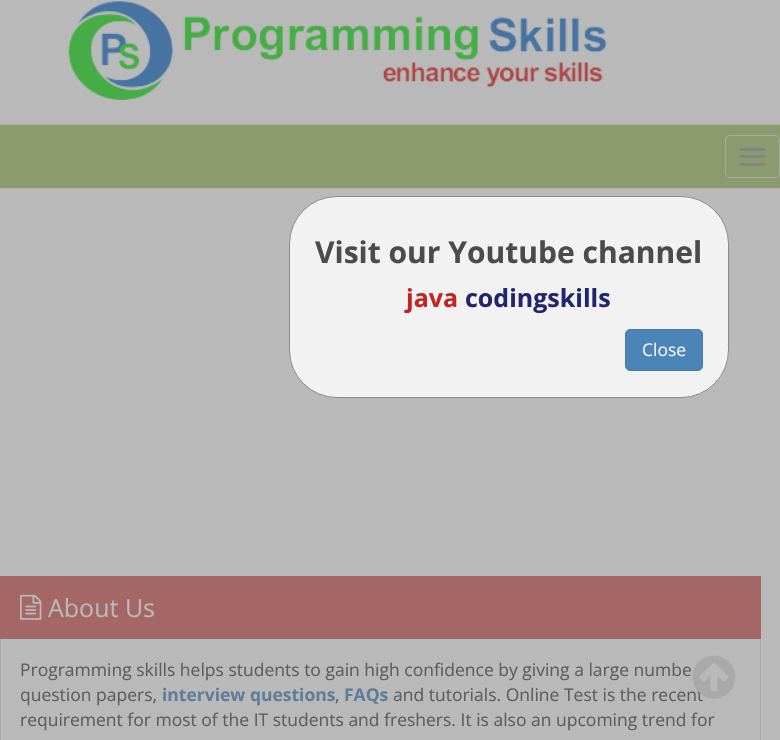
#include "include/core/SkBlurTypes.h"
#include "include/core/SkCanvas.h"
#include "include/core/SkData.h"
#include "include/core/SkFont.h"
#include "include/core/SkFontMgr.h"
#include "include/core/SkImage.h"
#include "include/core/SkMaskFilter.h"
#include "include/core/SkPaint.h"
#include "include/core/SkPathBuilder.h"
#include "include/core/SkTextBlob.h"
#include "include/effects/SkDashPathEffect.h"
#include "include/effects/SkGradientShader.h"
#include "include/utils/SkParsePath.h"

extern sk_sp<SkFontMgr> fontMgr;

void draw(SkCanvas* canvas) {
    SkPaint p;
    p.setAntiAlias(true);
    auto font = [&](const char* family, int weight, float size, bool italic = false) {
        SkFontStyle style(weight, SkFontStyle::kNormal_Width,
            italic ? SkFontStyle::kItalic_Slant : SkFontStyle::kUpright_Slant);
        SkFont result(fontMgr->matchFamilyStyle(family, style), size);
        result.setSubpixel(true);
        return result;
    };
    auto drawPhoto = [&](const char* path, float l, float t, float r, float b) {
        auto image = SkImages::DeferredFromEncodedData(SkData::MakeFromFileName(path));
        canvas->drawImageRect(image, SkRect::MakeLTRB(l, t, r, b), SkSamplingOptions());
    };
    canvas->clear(0xFFB9B9B9);
    p.setColor(0xFFF2F2F2);
    canvas->drawRoundRect(SkRect::MakeLTRB(289.5f, 196.5f, 728.5f, 397.5f), 47.5f, 47.5f, p);
    p.setStyle(SkPaint::kStroke_Style);
    p.setStrokeWidth(1);
    p.setColor(0xFF8A8A8A);
    canvas->drawRoundRect(SkRect::MakeLTRB(289.5f, 196.5f, 728.5f, 397.5f), 47.5f, 47.5f, p);
    auto font1 = font("Open Sans", 700, 30);
    p.setStyle(SkPaint::kFill_Style);
    p.setColor(0xFF4B4B4B);
    canvas->drawString("Visit our Youtube channel", 315, 263, font1, p);
    auto font2 = font("Open Sans", 700, 25);
    p.setColor(0xFFC52222);
    canvas->drawString("java", 406, 307, font2, p);
    p.setColor(0xFF232470);
    canvas->drawString("codingskills", 465, 307, font2, p);
    p.setColor(0xFF4B85B7);
    canvas->drawRoundRect(SkRect::MakeLTRB(625.5f, 329.5f, 702.5f, 370.5f), 4.5f, 4.5f, p);
    p.setStyle(SkPaint::kStroke_Style);
    p.setColor(0xFF477BA8);
    canvas->drawRoundRect(SkRect::MakeLTRB(625.5f, 329.5f, 702.5f, 370.5f), 4.5f, 4.5f, p);
    auto font3 = font("Open Sans", 400, 17.5f);
    p.setStyle(SkPaint::kFill_Style);
    p.setColor(0xFFF2F2F2);
    canvas->drawString("Close", 642, 356, font3, p);
    drawPhoto("media/1.png", 68, 1, 607, 100);
    p.setColor(0xFF8C9B6E);
    canvas->drawRect(SkRect::MakeLTRB(-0.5f, 124.5f, 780.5f, 188.5f), p);
    p.setStyle(SkPaint::kStroke_Style);
    p.setColor(0xFFAEAEAE);
    canvas->drawRect(SkRect::MakeLTRB(-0.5f, 124.5f, 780.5f, 188.5f), p);
    p.setColor(0xFFAAAAAA);
    canvas->drawRoundRect(SkRect::MakeLTRB(725.5f, 135.5f, 779.5f, 177.5f), 4.5f, 4.5f, p);
    p.setStyle(SkPaint::kFill_Style);
    p.setColor(0xFF848484);
    canvas->drawRoundRect(SkRect::MakeLTRB(739, 148, 766, 151), 1.5f, 1.5f, p);
    canvas->drawRoundRect(SkRect::MakeLTRB(739, 155, 766, 158), 1.5f, 1.5f, p);
    canvas->drawRoundRect(SkRect::MakeLTRB(739, 163, 766, 166), 1.5f, 1.5f, p);
    p.setColor(0xFFA56666);
    canvas->drawRect(SkRect::MakeLTRB(0, 576, 761, 639), p);
    drawPhoto("media/2.png", 20, 594, 42, 620);
    auto font4 = font("Open Sans", 400, 25);
    p.setColor(0xFFB9B9B9);
    canvas->drawString("About Us", 48, 617, font4, p);
    p.setColor(0xFFAAAAAA);
    canvas->drawRect(SkRect::MakeLTRB(760, 639, 761, 740), p);
    canvas->drawRect(SkRect::MakeLTRB(0, 639, 1, 740), p);
    p.setColor(0xFF5D5D5D);
    canvas->drawString("Programming skills helps students to gain high confidence by giving a large numbe", 20, 676, font3, p);
    canvas->drawString("question papers,", 20, 701, font3, p);
    auto font5 = font("Open Sans", 700, 17.5f);
    p.setColor(0xFF5D7D99);
    canvas->drawString("interview questions", 162, 701, font5, p);
    p.setColor(0xFF5D5D5D);
    canvas->drawString(",", 335, 701, font3, p);
    p.setColor(0xFF5D7D99);
    canvas->drawString("FAQs", 344, 701, font5, p);
    p.setColor(0xFF5D5D5D);
    canvas->drawString("and tutorials. Online Test is the recent", 393, 701, font3, p);
    canvas->drawString("requirement for most of the IT students and freshers. It is also an upcoming trend for", 20, 726, font3, p);
    drawPhoto("media/3.png", 692, 655, 736, 699);
}
